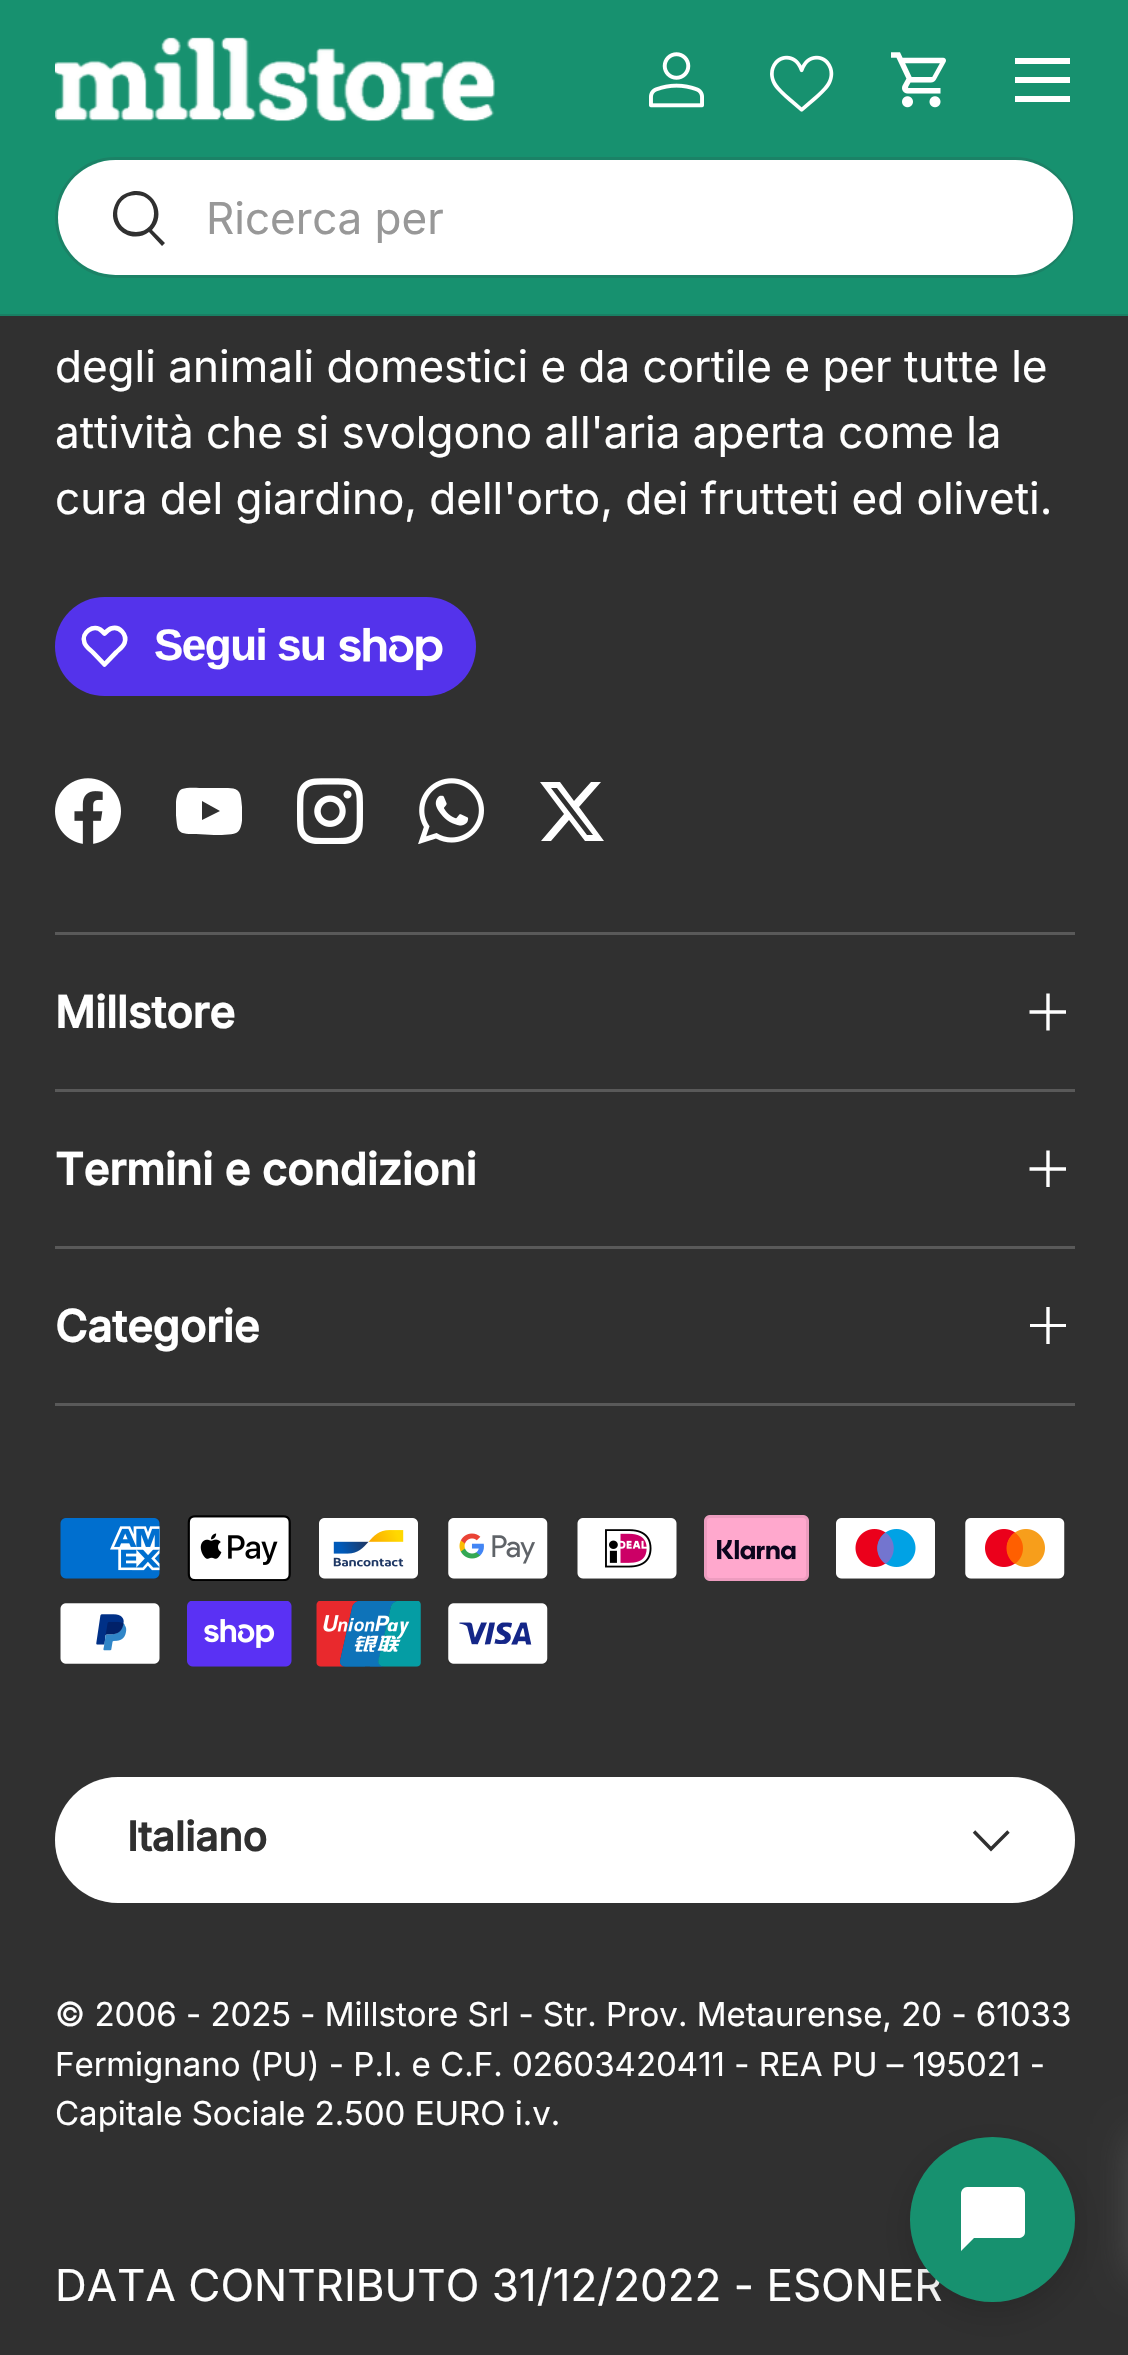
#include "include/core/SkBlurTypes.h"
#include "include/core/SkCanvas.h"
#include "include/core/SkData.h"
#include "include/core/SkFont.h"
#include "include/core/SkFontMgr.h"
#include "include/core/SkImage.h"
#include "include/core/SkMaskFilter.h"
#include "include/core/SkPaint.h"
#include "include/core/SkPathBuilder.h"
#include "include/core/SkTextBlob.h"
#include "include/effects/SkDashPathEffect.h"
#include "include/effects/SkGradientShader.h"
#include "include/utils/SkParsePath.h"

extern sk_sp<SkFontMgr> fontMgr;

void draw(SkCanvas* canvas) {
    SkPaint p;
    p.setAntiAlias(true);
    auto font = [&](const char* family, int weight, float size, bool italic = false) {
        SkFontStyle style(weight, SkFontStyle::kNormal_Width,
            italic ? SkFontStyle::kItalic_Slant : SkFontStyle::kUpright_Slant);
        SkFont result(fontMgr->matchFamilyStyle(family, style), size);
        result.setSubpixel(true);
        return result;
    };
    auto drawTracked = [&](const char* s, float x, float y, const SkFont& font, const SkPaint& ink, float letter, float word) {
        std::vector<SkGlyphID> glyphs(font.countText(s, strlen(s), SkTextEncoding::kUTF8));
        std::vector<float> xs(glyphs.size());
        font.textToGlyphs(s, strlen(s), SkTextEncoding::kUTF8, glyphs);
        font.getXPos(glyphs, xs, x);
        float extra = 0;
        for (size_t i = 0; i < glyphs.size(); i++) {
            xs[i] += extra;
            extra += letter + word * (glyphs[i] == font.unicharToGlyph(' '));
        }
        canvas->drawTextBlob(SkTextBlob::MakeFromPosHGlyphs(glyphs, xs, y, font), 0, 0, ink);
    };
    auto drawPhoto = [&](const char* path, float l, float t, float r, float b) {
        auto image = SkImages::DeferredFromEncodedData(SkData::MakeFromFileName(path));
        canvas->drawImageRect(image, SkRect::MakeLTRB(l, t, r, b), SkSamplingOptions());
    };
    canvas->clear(0xFF303030);
    p.setColor(0xFF17916F);
    canvas->drawRect(SkRect::MakeLTRB(0, 0, 1128, 316), p);
    drawPhoto("media/1.png", 55, 37, 495, 122);
    drawPhoto("media/2.png", 649, 52, 704, 108);
    drawPhoto("media/3.png", 770, 55, 834, 112);
    drawPhoto("media/4.png", 891, 52, 946, 108);
    {
        const struct { float l, t, r, b; SkColor color; } items[] = {
            {1015, 58, 1070, 64, 0xFFFFFFFF},
            {1015, 96, 1070, 102, 0xFFFFFFFF},
            {1015, 77, 1070, 83, 0xFFFFFFFF},
        };
        for (auto [l, t, r, b, color] : items) {
            p.setColor(color);
            canvas->drawRect(SkRect::MakeLTRB(l, t, r, b), p);
        }
    }
    p.setStyle(SkPaint::kStroke_Style);
    p.setStrokeWidth(3);
    p.setColor(0xFF1B8266);
    canvas->drawRoundRect(SkRect::MakeLTRB(56.5f, 158.5f, 1073.5f, 276.5f), 59, 59, p);
    p.setStyle(SkPaint::kFill_Style);
    p.setColor(0xFFFFFFFF);
    canvas->drawRoundRect(SkRect::MakeLTRB(58, 160, 1073, 275), 57.5f, 57.5f, p);
    p.setColor(0xFF303030);
    canvas->drawPath(SkPathBuilder().moveTo(152, 230).lineTo(165, 243).lineTo(162, 246).lineTo(149, 232).cubicTo(139, 240, 124, 237, 117, 227).cubicTo(112, 220, 112, 212, 115, 205).cubicTo(117, 200, 121, 195, 127, 193).cubicTo(150, 183, 169, 212, 152, 230).close().moveTo(136, 232).cubicTo(160, 232, 160, 195, 136, 195).cubicTo(111, 195, 111, 232, 136, 232).close().detach(), p);
    auto font1 = font("Inter", 400, 44);
    p.setColor(0xFF989898);
    canvas->drawString("Ricerca per", 206, 234, font1, p);
    p.setColor(0x26222222);
    canvas->drawRect(SkRect::MakeLTRB(0, 314, 1128, 316), p);
    p.setColor(0xFFFFFFFF);
    {
        const struct { const char* s; float x, y; } items[] = {
            {"degli animali domestici e da cortile e per tutte le", 55, 382},
            {"attività che si svolgono all'aria aperta come la", 55, 448},
            {"cura del giardino, dell'orto, dei frutteti ed oliveti.", 55, 514},
        };
        for (auto [s, x, y] : items) {
            canvas->drawString(s, x, y, font1, p);
        }
    }
    p.setColor(0xFF5433EB);
    canvas->drawRoundRect(SkRect::MakeLTRB(55, 597, 476, 696), 49.5f, 49.5f, p);
    p.setStyle(SkPaint::kStroke_Style);
    p.setStrokeWidth(4.6f);
    p.setStrokeJoin(SkPaint::kRound_Join);
    p.setColor(0xFFFFFFFF);
    canvas->drawPath(SkPathBuilder().moveTo(102, 631).lineTo(104.5f, 633.5f).cubicTo(106.5f, 631.5f, 108.5f, 629.5f, 111, 628.5f).cubicTo(119.5f, 625.5f, 127.5f, 634.5f, 124.5f, 643).cubicTo(123, 647, 119, 649.5f, 116, 652.5f).lineTo(104.5f, 664.5f).lineTo(93, 652.5f).cubicTo(90, 649.5f, 86, 647, 84.5f, 643).cubicTo(80.5f, 632.5f, 94, 623, 102, 631).close().detach(), p);
    auto font2 = font("Liberation Sans", 700, 44);
    p.setStyle(SkPaint::kFill_Style);
    drawTracked("Segui su", 154, 660, font2, p, -1.5f, 0);
    drawPhoto("media/5.png", 339, 627, 443, 671);
    drawPhoto("media/6.png", 55, 778, 121, 844);
    canvas->save();
    canvas->clipRect(SkRect::MakeLTRB(176, 778, 242, 844));
    canvas->drawPath(SkPathBuilder().moveTo(202, 820).lineTo(202, 801).lineTo(220, 811).close().moveTo(241, 798).cubicTo(240, 788, 233, 788, 225, 788).lineTo(204, 788).cubicTo(199, 788, 187, 787, 182, 789).cubicTo(173, 793, 176, 817, 177, 825).cubicTo(178, 835, 187, 834, 196, 834).lineTo(214, 835).cubicTo(219, 835, 231, 835, 236, 833).cubicTo(245, 829, 242, 805, 241, 798).close().detach(), p);
    canvas->restore();
    drawPhoto("media/7.png", 297, 778, 363, 844);
    drawPhoto("media/8.png", 418, 778, 484, 844);
    canvas->drawPath(SkPathBuilder().moveTo(591, 782).lineTo(601, 782).lineTo(579, 807).lineTo(604, 841).lineTo(585, 841).lineTo(569, 820).lineTo(551, 841).lineTo(541, 841).lineTo(564, 814).lineTo(540, 782).lineTo(560, 782).lineTo(574, 801).close().moveTo(587, 835).lineTo(593, 835).lineTo(557, 788).lineTo(551, 788).close().detach(), p);
    p.setColor(0xFF595959);
    canvas->drawRect(SkRect::MakeLTRB(55, 932, 1075, 935), p);
    canvas->drawRect(SkRect::MakeLTRB(55, 1089, 1075, 1092), p);
    auto font3 = font("Inter", 700, 44);
    p.setColor(0xFFFFFFFF);
    canvas->drawString("Millstore", 55, 1028, font3, p);
    p.setStyle(SkPaint::kStroke_Style);
    p.setStrokeWidth(3.4f);
    p.setStrokeJoin(SkPaint::kMiter_Join);
    canvas->drawPath(SkPathBuilder().moveTo(1029.5f, 1012).lineTo(1066, 1012).moveTo(1048, 993.5f).lineTo(1048, 1030.5f).detach(), p);
    p.setStyle(SkPaint::kFill_Style);
    p.setColor(0xFF595959);
    canvas->drawRect(SkRect::MakeLTRB(55, 1246, 1075, 1249), p);
    p.setColor(0xFFFFFFFF);
    canvas->drawString("Termini e condizioni", 55, 1185, font3, p);
    p.setStyle(SkPaint::kStroke_Style);
    canvas->drawPath(SkPathBuilder().moveTo(1029.5f, 1169).lineTo(1066, 1169).moveTo(1048, 1150.5f).lineTo(1048, 1187).detach(), p);
    p.setStyle(SkPaint::kFill_Style);
    p.setColor(0xFF595959);
    canvas->drawRect(SkRect::MakeLTRB(55, 1403, 1075, 1406), p);
    p.setColor(0xFFFFFFFF);
    canvas->drawString("Categorie", 55, 1342, font3, p);
    canvas->drawRect(SkRect::MakeLTRB(1030, 1324, 1066, 1327), p);
    p.setStyle(SkPaint::kStroke_Style);
    canvas->drawPath(SkPathBuilder().moveTo(1048, 1307).lineTo(1048, 1344).detach(), p);
    drawPhoto("media/9.png", 60, 1518, 160, 1579);
    drawPhoto("media/10.png", 187, 1515, 291, 1581);
    drawPhoto("media/11.png", 319, 1518, 418, 1579);
    drawPhoto("media/12.png", 448, 1518, 548, 1579);
    drawPhoto("media/13.png", 577, 1518, 677, 1579);
    drawPhoto("media/14.png", 704, 1515, 809, 1581);
    drawPhoto("media/15.png", 836, 1518, 935, 1579);
    drawPhoto("media/16.png", 965, 1518, 1065, 1579);
    drawPhoto("media/17.png", 60, 1603, 160, 1664);
    drawPhoto("media/18.png", 187, 1601, 292, 1667);
    drawPhoto("media/19.png", 316, 1601, 421, 1667);
    drawPhoto("media/20.png", 448, 1603, 548, 1664);
    p.setStyle(SkPaint::kFill_Style);
    canvas->drawRoundRect(SkRect::MakeLTRB(55, 1777, 1075, 1903), 63, 63, p);
    p.setStyle(SkPaint::kStroke_Style);
    p.setStrokeWidth(6);
    p.setColor(0x33FFFFFF);
    canvas->drawRoundRect(SkRect::MakeLTRB(58, 1780, 1072, 1900), 60, 60, p);
    auto font4 = font("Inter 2", 700, 40.5f);
    p.setStyle(SkPaint::kFill_Style);
    p.setColor(0xFF303030);
    canvas->drawString("Italiano", 127, 1851, font4, p);
    p.setStyle(SkPaint::kStroke_Style);
    p.setStrokeWidth(3.4f);
    canvas->drawPath(SkPathBuilder().moveTo(1008.5f, 1831.5f).lineTo(991, 1849).lineTo(974, 1831.5f).detach(), p);
    auto font5 = font("Inter", 400, 33);
    p.setStyle(SkPaint::kFill_Style);
    p.setColor(0xFFFFFFFF);
    {
        const struct { const char* s; float x, y; } items[] = {
            {"© 2006 - 2025 - Millstore Srl - Str. Prov. Metaurense, 20 - 61033", 55, 2026},
            {"Fermignano (PU) - P.I. e C.F. 02603420411 - REA PU – 195021 -", 55, 2076},
            {"Capitale Sociale 2.500 EURO i.v.", 55, 2125},
        };
        for (auto [s, x, y] : items) {
            canvas->drawString(s, x, y, font5, p);
        }
    }
    p.setColor(0x80757575);
    p.setMaskFilter(SkMaskFilter::MakeBlur(kNormal_SkBlurStyle, 19));
    canvas->drawRect(SkRect::MakeLTRB(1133, 2137, 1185, 2274), p);
    p.setMaskFilter(nullptr);
    p.setColor(0xFFFFFFFF);
    canvas->drawString("DATA CONTRIBUTO 31/12/2022 - ESONER", 55, 2301, font1, p);
    p.setColor(0x26000000);
    p.setMaskFilter(SkMaskFilter::MakeBlur(kNormal_SkBlurStyle, 16.5f));
    canvas->drawRoundRect(SkRect::MakeLTRB(910, 2148, 1075, 2313), 82.5f, 82.5f, p);
    p.setMaskFilter(nullptr);
    p.setColor(0xFF17916F);
    canvas->drawCircle(992.5f, 2219.5f, 82.5f, p);
    p.setColor(0xFFFFFFFF);
    canvas->drawPath(SkPathBuilder().moveTo(1018, 2187).lineTo(967, 2187).cubicTo(964, 2187, 961, 2190, 961, 2194).lineTo(961, 2251).lineTo(974, 2238).lineTo(1018, 2238).cubicTo(1022, 2238, 1025, 2236, 1025, 2232).lineTo(1025, 2194).cubicTo(1025, 2190, 1022, 2187, 1018, 2187).close().detach(), p);
}
